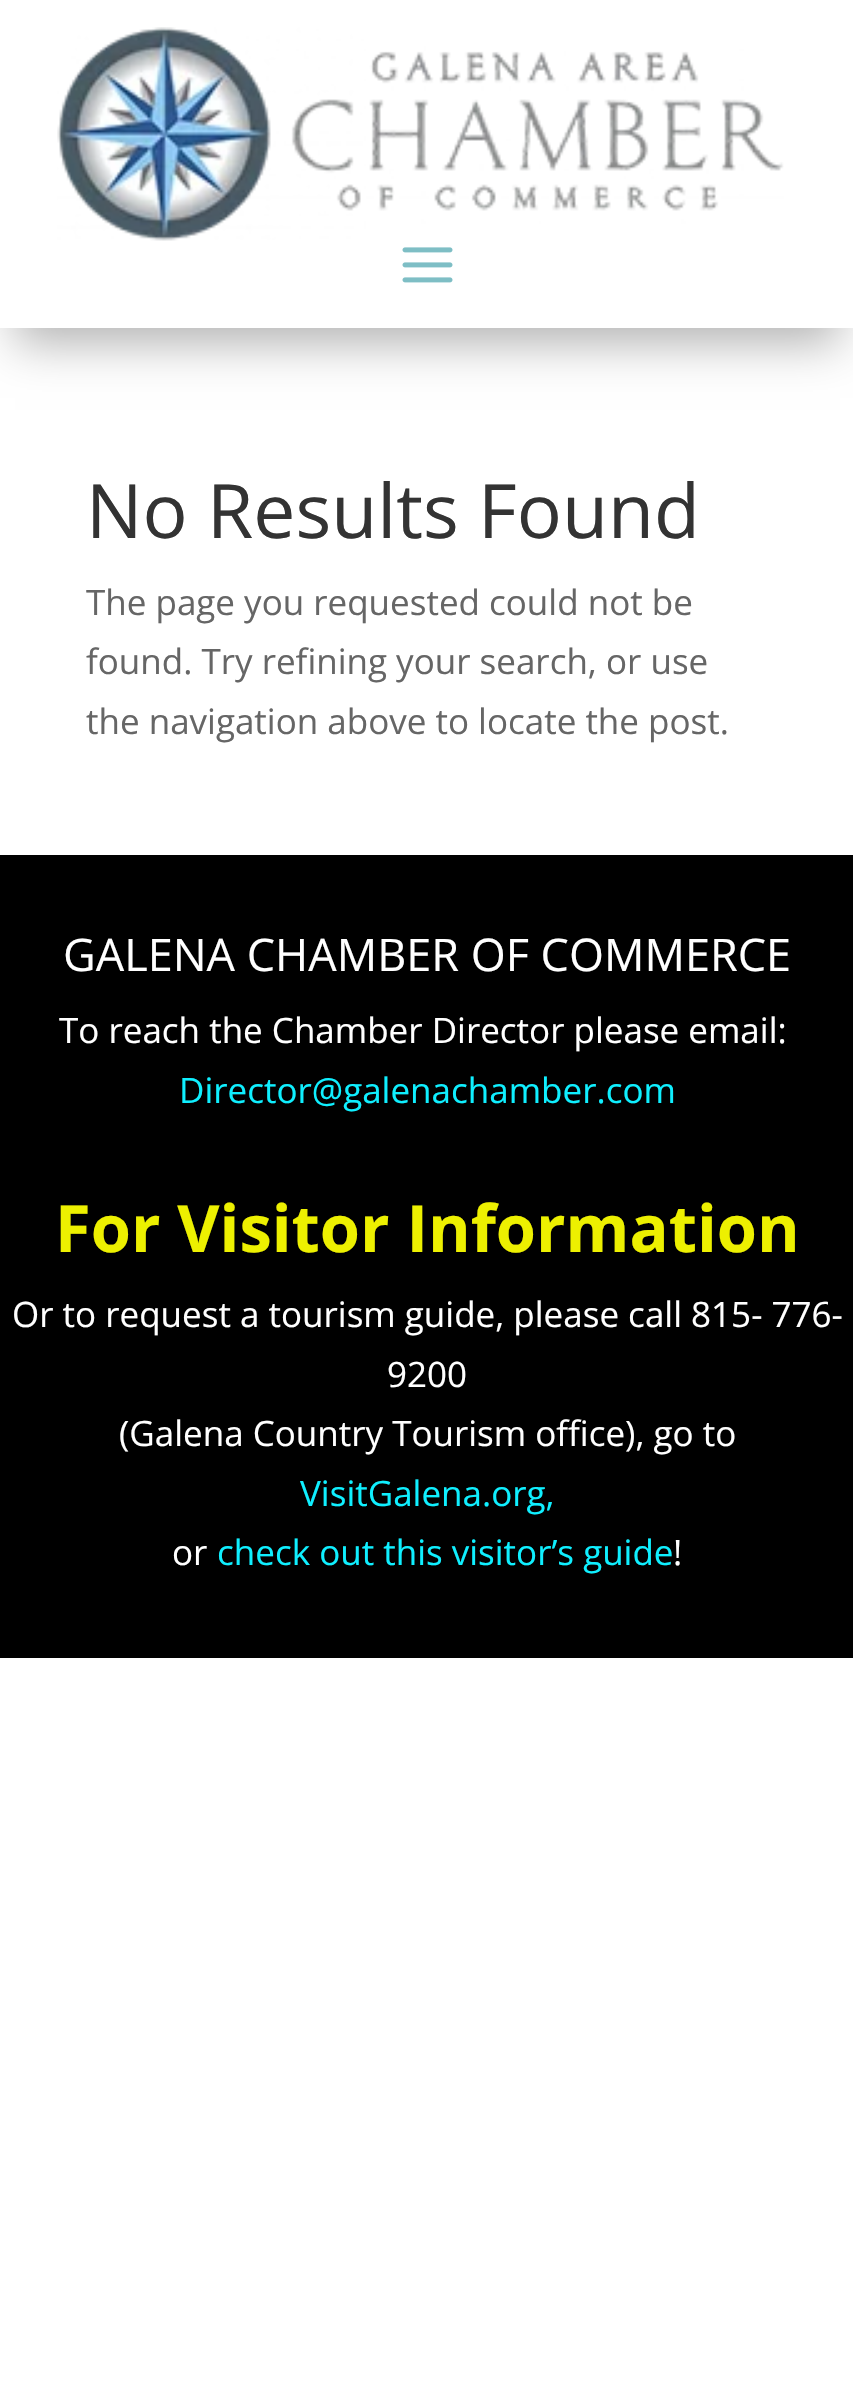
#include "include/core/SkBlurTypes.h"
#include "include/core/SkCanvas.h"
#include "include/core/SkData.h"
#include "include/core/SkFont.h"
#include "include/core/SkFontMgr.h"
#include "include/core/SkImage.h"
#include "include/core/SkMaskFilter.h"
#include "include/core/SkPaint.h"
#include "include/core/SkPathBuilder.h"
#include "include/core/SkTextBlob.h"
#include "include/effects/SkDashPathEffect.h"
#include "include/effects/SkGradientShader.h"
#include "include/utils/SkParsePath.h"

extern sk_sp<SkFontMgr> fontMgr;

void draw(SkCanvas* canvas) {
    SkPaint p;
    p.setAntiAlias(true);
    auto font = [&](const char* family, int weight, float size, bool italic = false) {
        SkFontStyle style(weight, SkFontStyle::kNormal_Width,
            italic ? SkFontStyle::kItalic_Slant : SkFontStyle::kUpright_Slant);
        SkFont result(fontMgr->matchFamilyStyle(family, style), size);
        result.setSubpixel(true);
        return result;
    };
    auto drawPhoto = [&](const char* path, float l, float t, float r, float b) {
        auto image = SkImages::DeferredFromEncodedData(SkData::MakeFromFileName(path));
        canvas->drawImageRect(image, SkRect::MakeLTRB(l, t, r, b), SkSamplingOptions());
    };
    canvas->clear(0xFFFFFFFF);
    canvas->save();
    canvas->clipPath(SkPathBuilder(SkPathFillType::kEvenOdd).moveTo(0, 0).lineTo(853, 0).lineTo(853, 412).lineTo(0, 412).close().moveTo(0, 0).lineTo(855, 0).lineTo(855, 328).lineTo(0, 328).close().detach(), true);
    p.setColor(0x4D000000);
    p.setMaskFilter(SkMaskFilter::MakeBlur(kNormal_SkBlurStyle, 22.5f));
    canvas->drawRect(SkRect::MakeLTRB(15, 45, 840, 343), p);
    p.setMaskFilter(nullptr);
    canvas->restore();
    p.setColor(0xCCFFFFFF);
    canvas->drawRect(SkRect::MakeLTRB(0, 327, 853, 328), p);
    drawPhoto("media/1.png", 57, 27, 784, 241);
    drawPhoto("media/2.png", 402, 247, 453, 283);
    auto font1 = font("Open Sans", 400, 75);
    p.setColor(0xFF333333);
    canvas->drawString("No Results Found", 86, 538, font1, p);
    auto font2 = font("Open Sans", 400, 35);
    p.setColor(0xFF666666);
    {
        const struct { const char* s; float x, y; } items[] = {
            {"The page you requested could not be", 86, 615},
            {"found. Try refining your search, or use", 86, 674},
            {"the navigation above to locate the post.", 86, 734},
        };
        for (auto [s, x, y] : items) {
            canvas->drawString(s, x, y, font2, p);
        }
    }
    p.setColor(0xFF000000);
    canvas->drawRect(SkRect::MakeLTRB(0, 855, 853, 1658), p);
    auto font3 = font("Open Sans", 400, 45);
    p.setColor(0xFFFFFFFF);
    canvas->drawString("GALENA CHAMBER OF COMMERCE", 63, 971, font3, p);
    canvas->drawString("To reach the Chamber Director please email:", 59, 1043, font2, p);
    p.setColor(0xFF0FEFFF);
    canvas->drawString("Director@galenachamber.com", 179, 1103, font2, p);
    auto font4 = font("Open Sans", 700, 65);
    p.setColor(0xFFEDF000);
    canvas->drawString("For Visitor Information", 55, 1252, font4, p);
    p.setColor(0xFFFFFFFF);
    {
        const struct { const char* s; float x, y; } items[] = {
            {"Or to request a tourism guide, please call 815- 776-", 12, 1327},
            {"9200", 387, 1387},
            {"(Galena Country Tourism office), go to", 119, 1446},
        };
        for (auto [s, x, y] : items) {
            canvas->drawString(s, x, y, font2, p);
        }
    }
    p.setColor(0xFF0FEFFF);
    canvas->drawString("VisitGalena.org,", 300, 1506, font2, p);
    p.setColor(0xFFFFFFFF);
    canvas->drawString("or", 172, 1565, font2, p);
    p.setColor(0xFF0FEFFF);
    canvas->drawString("check out this visitor’s guide", 217, 1565, font2, p);
    p.setColor(0xFFFFFFFF);
    canvas->drawString("!", 673, 1565, font2, p);
}
